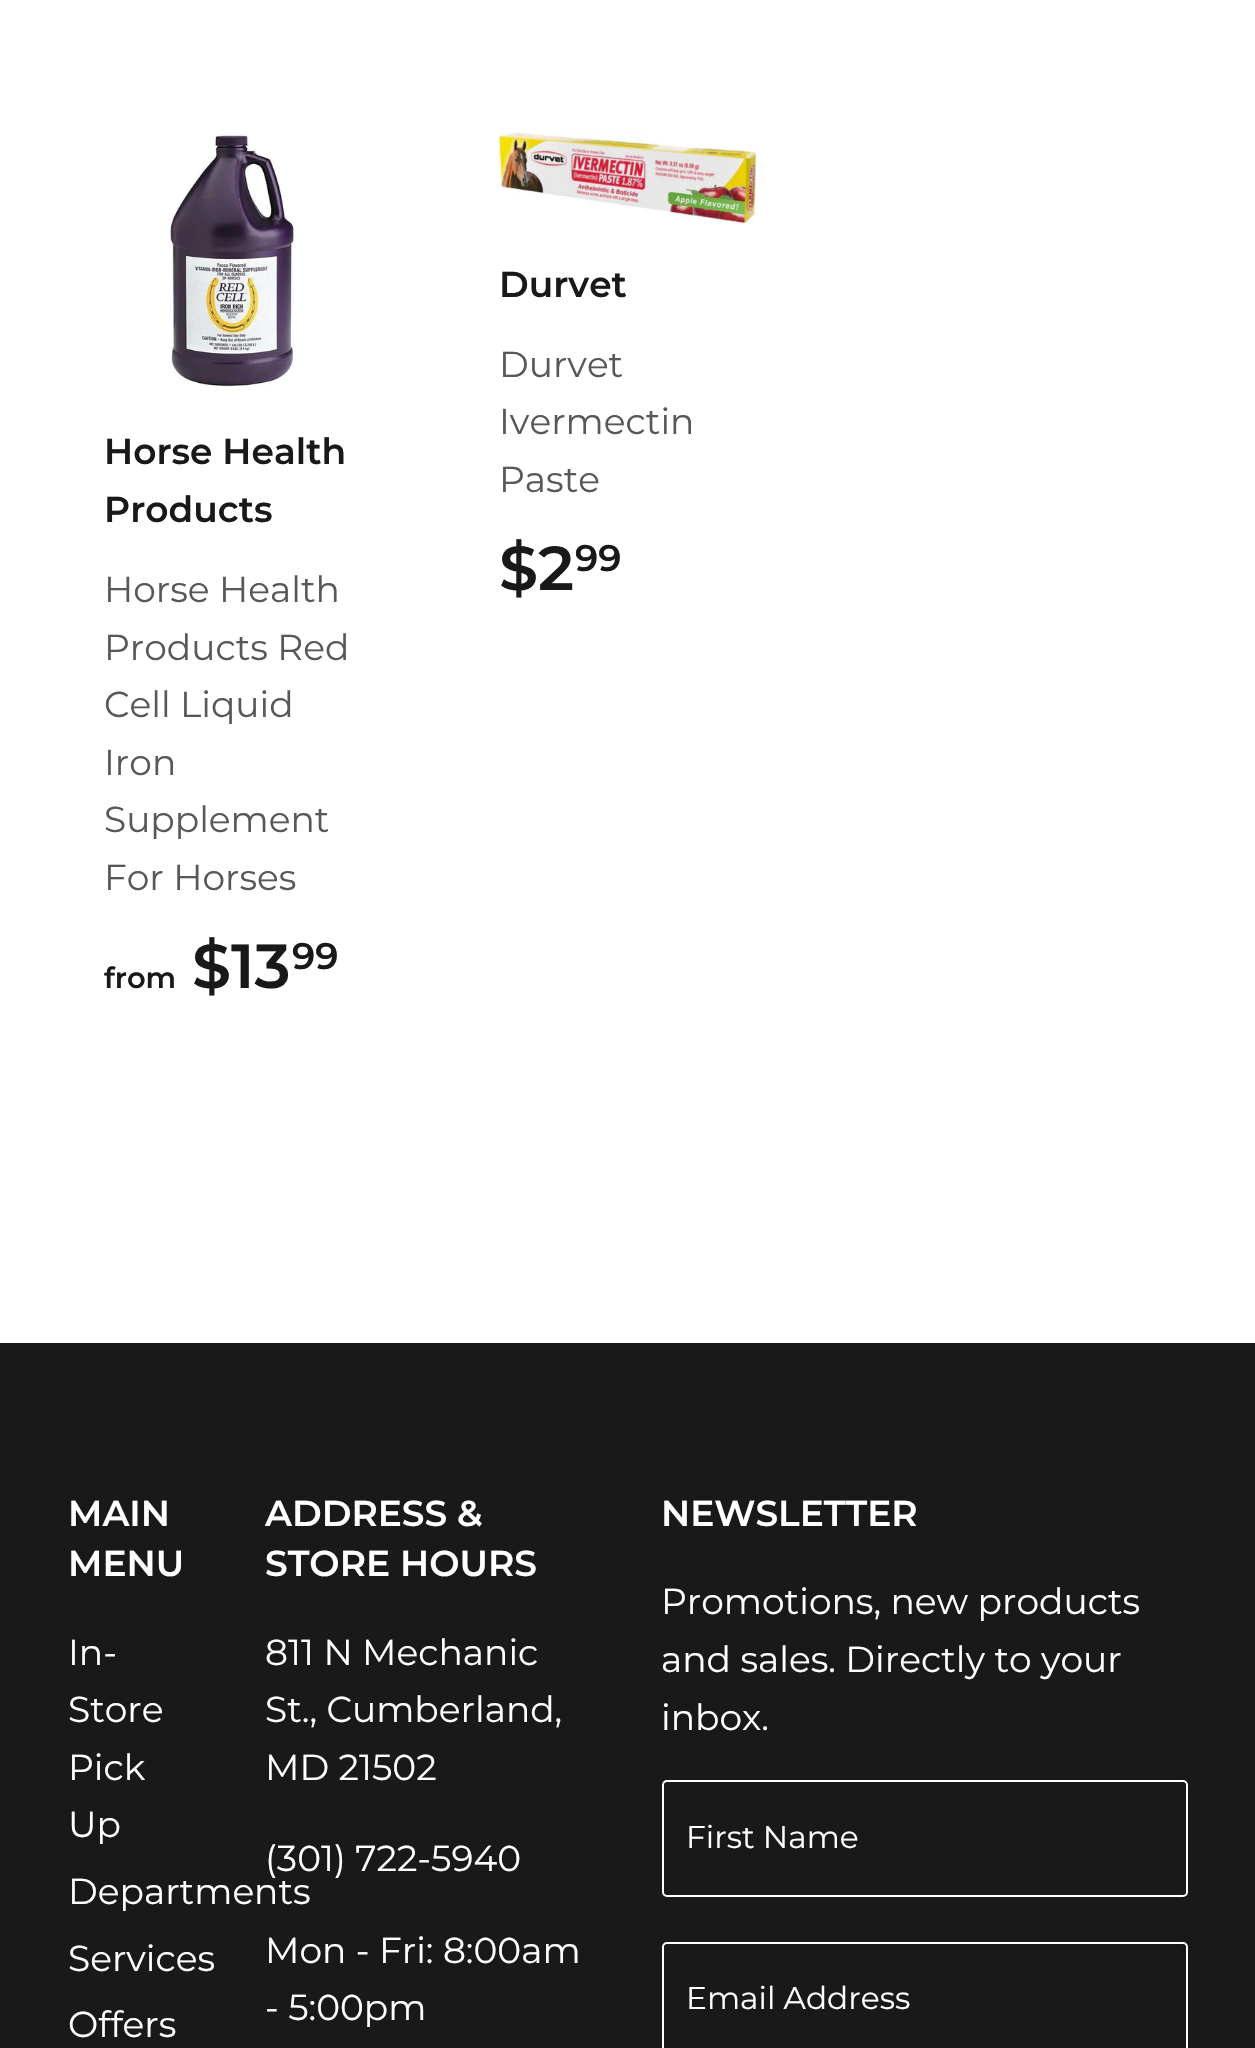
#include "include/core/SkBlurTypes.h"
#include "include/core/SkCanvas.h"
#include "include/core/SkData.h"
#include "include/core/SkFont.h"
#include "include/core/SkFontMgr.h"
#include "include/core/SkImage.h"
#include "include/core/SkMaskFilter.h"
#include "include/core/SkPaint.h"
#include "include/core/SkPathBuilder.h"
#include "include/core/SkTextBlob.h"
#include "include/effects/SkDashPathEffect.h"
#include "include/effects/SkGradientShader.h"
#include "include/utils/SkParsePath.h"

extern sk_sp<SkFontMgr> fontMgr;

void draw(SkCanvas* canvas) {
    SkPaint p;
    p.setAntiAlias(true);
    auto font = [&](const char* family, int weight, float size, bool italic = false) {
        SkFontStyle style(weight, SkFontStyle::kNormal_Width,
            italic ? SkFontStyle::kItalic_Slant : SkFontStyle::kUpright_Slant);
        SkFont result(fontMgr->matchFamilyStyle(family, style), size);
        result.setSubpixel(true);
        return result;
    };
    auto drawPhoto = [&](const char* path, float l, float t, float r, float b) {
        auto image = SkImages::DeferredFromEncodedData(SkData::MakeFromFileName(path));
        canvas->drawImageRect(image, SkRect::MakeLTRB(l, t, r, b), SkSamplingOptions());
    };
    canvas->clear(0xFFFFFFFF);
    drawPhoto("media/1.png", 170, 133, 294, 387);
    auto font1 = font("Montserrat", 600, 36);
    p.setColor(0xFF191919);
    canvas->drawString("Horse Health", 104, 464, font1, p);
    canvas->drawString("Products", 104, 522, font1, p);
    auto font2 = font("Montserrat", 400, 36);
    p.setColor(0xFF585858);
    {
        const struct { const char* s; float x, y; } items[] = {
            {"Horse Health", 104, 602},
            {"Products Red", 104, 660},
            {"Cell Liquid", 104, 717},
            {"Iron", 104, 775},
            {"Supplement", 104, 832},
            {"For Horses", 104, 890},
        };
        for (auto [s, x, y] : items) {
            canvas->drawString(s, x, y, font2, p);
        }
    }
    auto font3 = font("Montserrat", 600, 62);
    p.setColor(0xFF191919);
    canvas->drawString("$13", 192, 988, font3, p);
    auto font4 = font("Montserrat", 600, 37);
    canvas->drawString("99", 292, 969, font4, p);
    auto font5 = font("Montserrat", 600, 29);
    canvas->drawString("from", 104, 988, font5, p);
    drawPhoto("media/2.png", 499, 132, 756, 223);
    canvas->drawString("Durvet", 499, 297, font1, p);
    p.setColor(0xFF585858);
    {
        const struct { const char* s; float x, y; } items[] = {
            {"Durvet", 499, 377},
            {"Ivermectin", 499, 434},
            {"Paste", 499, 492},
        };
        for (auto [s, x, y] : items) {
            canvas->drawString(s, x, y, font2, p);
        }
    }
    p.setColor(0xFF191919);
    canvas->drawString("$2", 499, 590, font3, p);
    canvas->drawString("99", 575, 571, font4, p);
    canvas->drawRect(SkRect::MakeLTRB(0, 1343, 1255, 2048), p);
    p.setColor(0xFFFFFFFF);
    canvas->drawString("MAIN", 68, 1526, font1, p);
    canvas->drawString("MENU", 68, 1576, font1, p);
    {
        const struct { const char* s; float x, y; } items[] = {
            {"In-", 68, 1665},
            {"Store", 68, 1722},
            {"Pick", 68, 1780},
            {"Up", 68, 1837},
            {"Departments", 68, 1904},
            {"Services", 68, 1971},
            {"Offers", 68, 2037},
        };
        for (auto [s, x, y] : items) {
            canvas->drawString(s, x, y, font2, p);
        }
    }
    canvas->drawString("ADDRESS &", 265, 1526, font1, p);
    canvas->drawString("STORE HOURS", 265, 1576, font1, p);
    {
        const struct { const char* s; float x, y; } items[] = {
            {"811 N Mechanic", 265, 1665},
            {"St., Cumberland,", 265, 1722},
            {"MD 21502", 265, 1780},
            {"(301) 722-5940", 265, 1871},
            {"Mon - Fri: 8:00am", 265, 1963},
            {"- 5:00pm", 265, 2020},
        };
        for (auto [s, x, y] : items) {
            canvas->drawString(s, x, y, font2, p);
        }
    }
    canvas->drawString("NEWSLETTER", 661, 1526, font1, p);
    {
        const struct { const char* s; float x, y; } items[] = {
            {"Promotions, new products", 661, 1614},
            {"and sales. Directly to your", 661, 1672},
            {"inbox.", 661, 1730},
        };
        for (auto [s, x, y] : items) {
            canvas->drawString(s, x, y, font2, p);
        }
    }
    p.setStyle(SkPaint::kStroke_Style);
    p.setStrokeWidth(2);
    canvas->drawRoundRect(SkRect::MakeLTRB(663, 1781, 1187, 1896), 4, 4, p);
    auto font6 = font("Montserrat", 400, 31.25f);
    p.setStyle(SkPaint::kFill_Style);
    canvas->drawString("First Name", 686, 1848, font6, p);
    p.setStyle(SkPaint::kStroke_Style);
    canvas->drawRoundRect(SkRect::MakeLTRB(663, 1943, 1187, 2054), 4, 4, p);
    p.setStyle(SkPaint::kFill_Style);
    canvas->drawString("Email Address", 686, 2009, font6, p);
}
